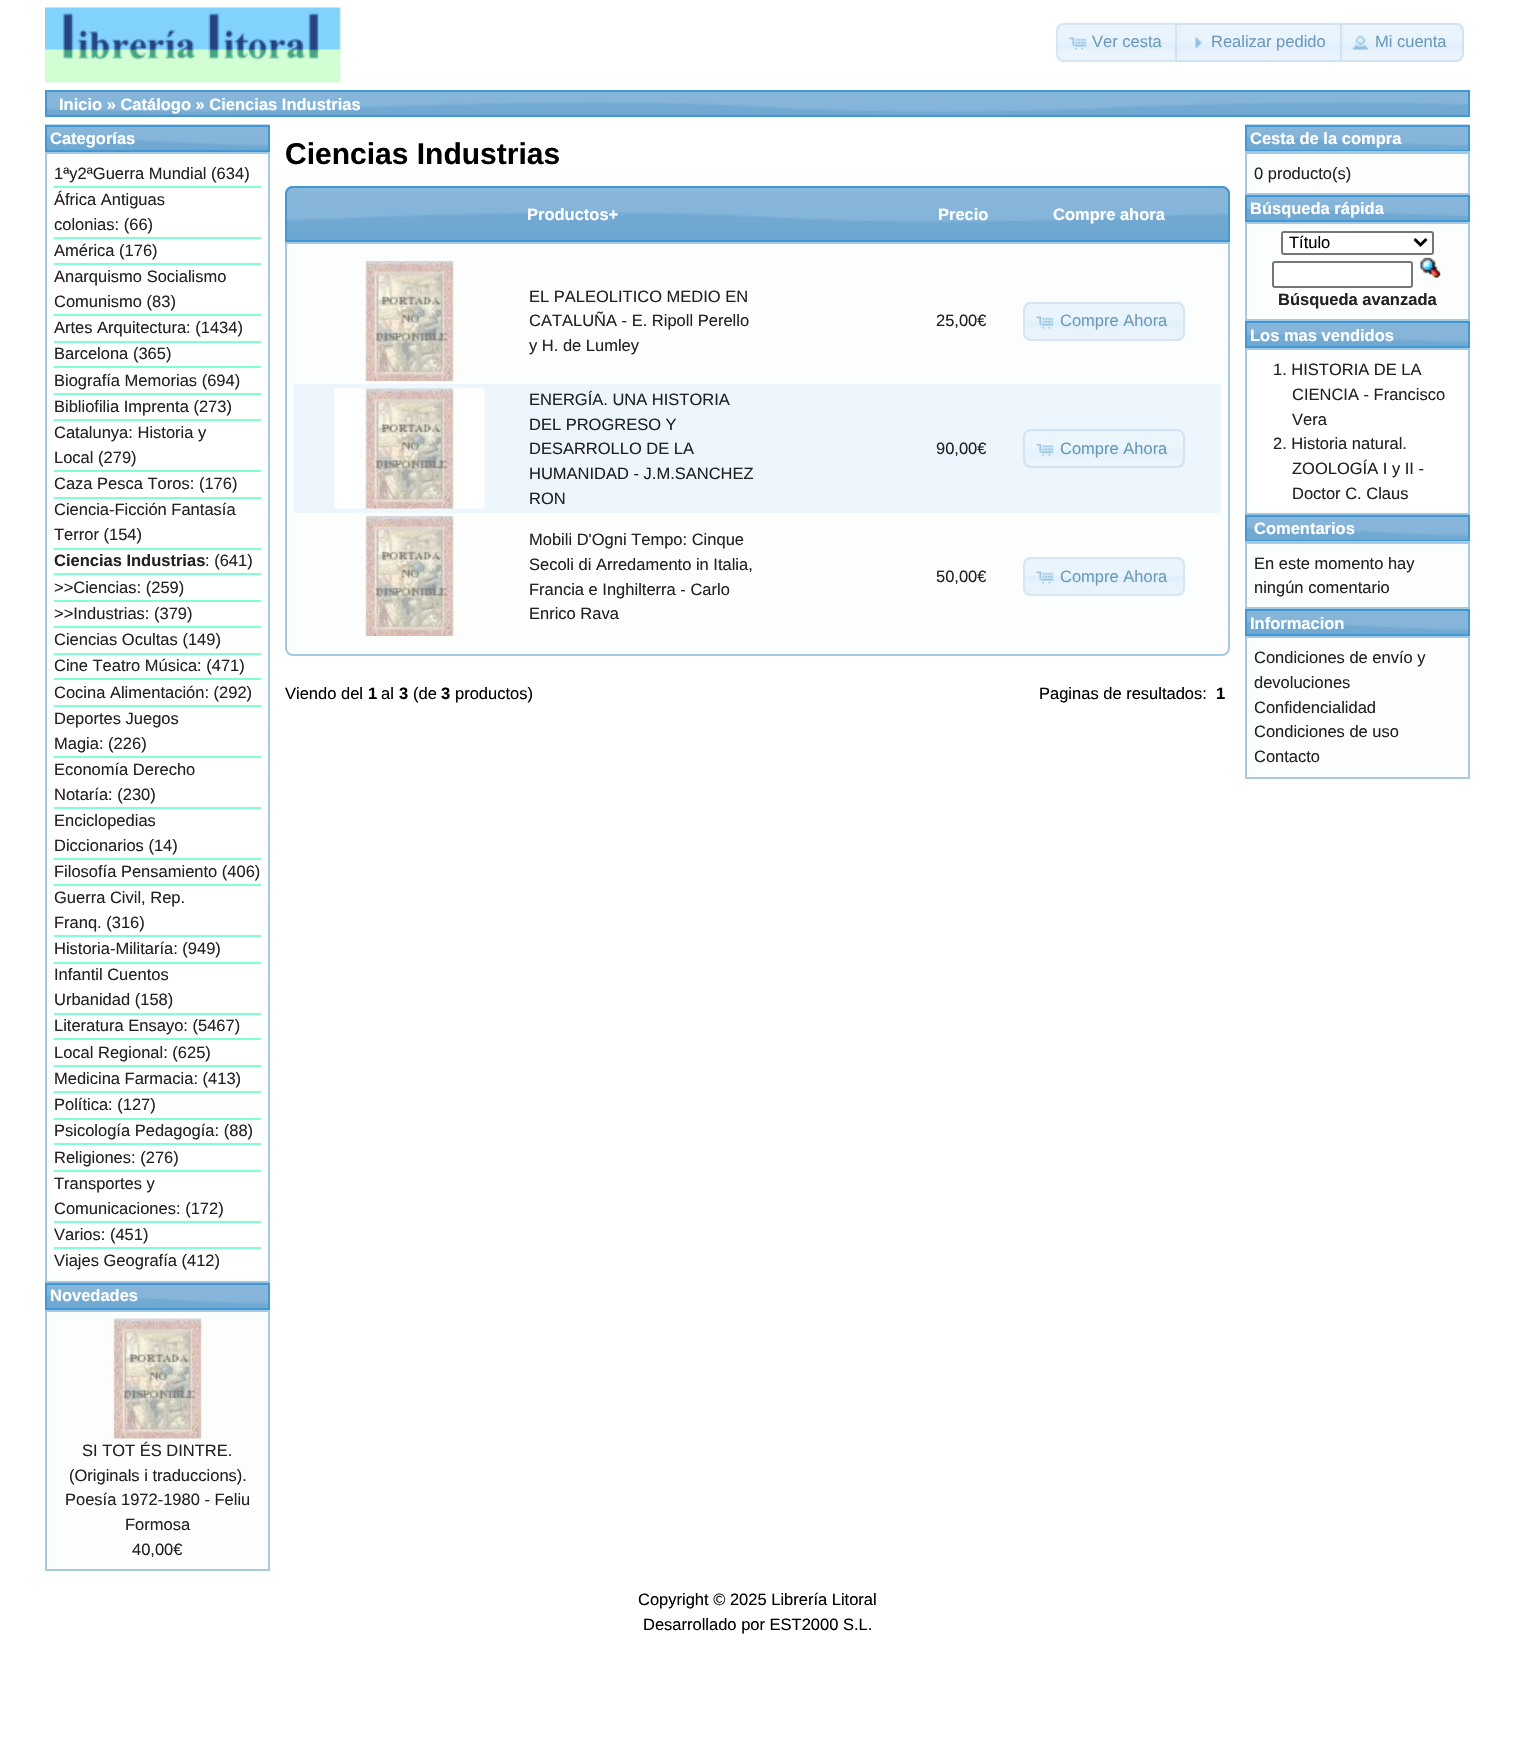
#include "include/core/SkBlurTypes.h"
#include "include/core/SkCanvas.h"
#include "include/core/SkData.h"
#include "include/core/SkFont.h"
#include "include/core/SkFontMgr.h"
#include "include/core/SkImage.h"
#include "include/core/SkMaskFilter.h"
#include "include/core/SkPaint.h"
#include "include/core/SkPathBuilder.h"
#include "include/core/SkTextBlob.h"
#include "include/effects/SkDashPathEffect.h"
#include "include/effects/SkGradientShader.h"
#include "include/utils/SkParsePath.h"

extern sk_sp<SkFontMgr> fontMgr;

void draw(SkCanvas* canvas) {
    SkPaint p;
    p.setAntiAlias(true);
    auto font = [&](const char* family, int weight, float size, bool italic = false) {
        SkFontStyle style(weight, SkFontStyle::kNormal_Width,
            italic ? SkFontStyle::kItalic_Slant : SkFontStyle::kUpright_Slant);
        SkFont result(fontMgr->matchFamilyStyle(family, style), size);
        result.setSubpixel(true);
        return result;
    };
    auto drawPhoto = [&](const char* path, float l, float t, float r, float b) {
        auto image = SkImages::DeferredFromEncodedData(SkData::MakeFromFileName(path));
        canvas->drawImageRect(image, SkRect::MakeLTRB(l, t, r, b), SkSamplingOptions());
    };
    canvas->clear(0xFFFFFFFF);
    drawPhoto("media/1.png", 45, 7, 341, 83);
    p.setColor(0xFFE9F4FD);
    canvas->drawPath(SkPathBuilder().moveTo(1064, 23).lineTo(1181, 23).lineTo(1181, 62).lineTo(1064, 62).cubicTo(1059.5f, 62, 1056, 58.5f, 1056, 54).lineTo(1056, 31).cubicTo(1056, 26.5f, 1059.5f, 23, 1064, 23).close().detach(), p);
    drawPhoto("media/2.png", 1056, 22, 1180, 50);
    p.setStyle(SkPaint::kStroke_Style);
    p.setStrokeWidth(2);
    p.setColor(0xFFD6E6F2);
    canvas->drawPath(SkPathBuilder().moveTo(1064, 24).lineTo(1180, 24).lineTo(1180, 61).lineTo(1064, 61).cubicTo(1060, 61, 1057, 58, 1057, 54).lineTo(1057, 31).cubicTo(1057, 27, 1060, 24, 1064, 24).close().detach(), p);
    drawPhoto("media/3.png", 1069, 37, 1087, 50);
    auto font1 = font("Liberation Sans", 400, 16.5f);
    p.setStyle(SkPaint::kFill_Style);
    p.setColor(0xFF6D9ABB);
    canvas->drawString("Ver cesta", 1092, 47, font1, p);
    p.setColor(0xB3DFEFFC);
    canvas->drawRect(SkRect::MakeLTRB(1175, 23, 1344, 62), p);
    drawPhoto("media/4.png", 1174, 22, 1344, 62);
    p.setStyle(SkPaint::kStroke_Style);
    p.setColor(0xB3C5DBEC);
    canvas->drawRect(SkRect::MakeLTRB(1176, 24, 1343, 61), p);
    drawPhoto("media/5.png", 1195, 37, 1202, 49);
    p.setStyle(SkPaint::kFill_Style);
    p.setColor(0xFF6D9ABB);
    canvas->drawString("Realizar pedido", 1211, 47, font1, p);
    p.setColor(0xB3DFEFFC);
    canvas->drawPath(SkPathBuilder().moveTo(1340, 23).lineTo(1456, 23).cubicTo(1460.5f, 23, 1464, 26.5f, 1464, 31).lineTo(1464, 54).cubicTo(1464, 58.5f, 1460.5f, 62, 1456, 62).lineTo(1340, 62).close().detach(), p);
    drawPhoto("media/6.png", 1339, 22, 1464, 61);
    p.setStyle(SkPaint::kStroke_Style);
    p.setColor(0xB3C5DBEC);
    canvas->drawPath(SkPathBuilder().moveTo(1341, 24).lineTo(1456, 24).cubicTo(1460, 24, 1463, 27, 1463, 31).lineTo(1463, 54).cubicTo(1463, 58, 1460, 61, 1456, 61).lineTo(1341, 61).close().detach(), p);
    drawPhoto("media/7.png", 1352, 35, 1369, 50);
    p.setStyle(SkPaint::kFill_Style);
    p.setColor(0xFF6D9ABB);
    canvas->drawString("Mi cuenta", 1375, 47, font1, p);
    drawPhoto("media/8.png", 47, 92, 1468, 115);
    p.setStyle(SkPaint::kStroke_Style);
    p.setColor(0xFF4297D7);
    canvas->drawRect(SkRect::MakeLTRB(46, 91, 1469, 116), p);
    auto font2 = font("Liberation Sans", 700, 16.5f);
    p.setStyle(SkPaint::kFill_Style);
    p.setColor(0xFFFFFFFF);
    canvas->drawString("Inicio » Catálogo » Ciencias Industrias", 59, 110, font2, p);
    drawPhoto("media/9.png", 45, 124, 270, 150);
    p.setStyle(SkPaint::kStroke_Style);
    p.setColor(0xFF4297D7);
    canvas->drawRect(SkRect::MakeLTRB(46, 126, 269, 151), p);
    p.setStyle(SkPaint::kFill_Style);
    p.setColor(0xFFFFFFFF);
    canvas->drawString("Categorías", 50, 144, font2, p);
    p.setColor(0xFFFCFDFD);
    canvas->drawRect(SkRect::MakeLTRB(46, 153, 269, 1282), p);
    p.setStyle(SkPaint::kStroke_Style);
    p.setColor(0xFFA6C9E2);
    canvas->drawRect(SkRect::MakeLTRB(46, 153, 269, 1282), p);
    p.setStyle(SkPaint::kFill_Style);
    p.setColor(0xFFFFFFFF);
    canvas->drawRect(SkRect::MakeLTRB(54, 161, 261, 1274), p);
    p.setColor(0xFF222222);
    canvas->drawString("1ªy2ªGuerra Mundial (634)", 54, 179, font1, p);
    p.setColor(0xFF80FFD0);
    canvas->drawRect(SkRect::MakeLTRB(54, 186, 261, 188), p);
    p.setColor(0xFF222222);
    canvas->drawString("África Antiguas", 54, 205, font1, p);
    canvas->drawString("colonias: (66)", 54, 230, font1, p);
    p.setColor(0xFF80FFD0);
    canvas->drawRect(SkRect::MakeLTRB(54, 237, 261, 239), p);
    p.setColor(0xFF222222);
    canvas->drawString("América (176)", 54, 256, font1, p);
    p.setColor(0xFF80FFD0);
    canvas->drawRect(SkRect::MakeLTRB(54, 263, 261, 265), p);
    p.setColor(0xFF222222);
    canvas->drawString("Anarquismo Socialismo", 54, 282, font1, p);
    canvas->drawString("Comunismo (83)", 54, 307, font1, p);
    p.setColor(0xFF80FFD0);
    canvas->drawRect(SkRect::MakeLTRB(54, 314, 261, 316), p);
    p.setColor(0xFF222222);
    canvas->drawString("Artes Arquitectura: (1434)", 54, 333, font1, p);
    p.setColor(0xFF80FFD0);
    canvas->drawRect(SkRect::MakeLTRB(54, 341, 261, 343), p);
    p.setColor(0xFF222222);
    canvas->drawString("Barcelona (365)", 54, 359, font1, p);
    p.setColor(0xFF80FFD0);
    canvas->drawRect(SkRect::MakeLTRB(54, 366, 261, 368), p);
    p.setColor(0xFF222222);
    canvas->drawString("Biografía Memorias (694)", 54, 386, font1, p);
    p.setColor(0xFF80FFD0);
    canvas->drawRect(SkRect::MakeLTRB(54, 393, 261, 395), p);
    p.setColor(0xFF222222);
    canvas->drawString("Bibliofilia Imprenta (273)", 54, 412, font1, p);
    p.setColor(0xFF80FFD0);
    canvas->drawRect(SkRect::MakeLTRB(54, 419, 261, 421), p);
    p.setColor(0xFF222222);
    canvas->drawString("Catalunya: Historia y", 54, 438, font1, p);
    canvas->drawString("Local (279)", 54, 463, font1, p);
    p.setColor(0xFF80FFD0);
    canvas->drawRect(SkRect::MakeLTRB(54, 470, 261, 472), p);
    p.setColor(0xFF222222);
    canvas->drawString("Caza Pesca Toros: (176)", 54, 489, font1, p);
    p.setColor(0xFF80FFD0);
    canvas->drawRect(SkRect::MakeLTRB(54, 497, 261, 499), p);
    p.setColor(0xFF222222);
    canvas->drawString("Ciencia-Ficción Fantasía", 54, 515, font1, p);
    canvas->drawString("Terror (154)", 54, 540, font1, p);
    p.setColor(0xFF80FFD0);
    canvas->drawRect(SkRect::MakeLTRB(54, 548, 261, 550), p);
    p.setColor(0xFF222222);
    canvas->drawString("Ciencias Industrias", 54, 566, font2, p);
    canvas->drawString(": (641)", 205, 566, font1, p);
    p.setColor(0xFF80FFD0);
    canvas->drawRect(SkRect::MakeLTRB(54, 573, 261, 575), p);
    p.setColor(0xFF222222);
    canvas->drawString(">>Ciencias: (259)", 54, 593, font1, p);
    p.setColor(0xFF80FFD0);
    canvas->drawRect(SkRect::MakeLTRB(54, 600, 261, 602), p);
    p.setColor(0xFF222222);
    canvas->drawString(">>Industrias: (379)", 54, 619, font1, p);
    p.setColor(0xFF80FFD0);
    canvas->drawRect(SkRect::MakeLTRB(54, 626, 261, 628), p);
    p.setColor(0xFF222222);
    canvas->drawString("Ciencias Ocultas (149)", 54, 645, font1, p);
    p.setColor(0xFF80FFD0);
    canvas->drawRect(SkRect::MakeLTRB(54, 653, 261, 655), p);
    p.setColor(0xFF222222);
    canvas->drawString("Cine Teatro Música: (471)", 54, 671, font1, p);
    p.setColor(0xFF80FFD0);
    canvas->drawRect(SkRect::MakeLTRB(54, 678, 261, 680), p);
    p.setColor(0xFF222222);
    canvas->drawString("Cocina Alimentación: (292)", 54, 698, font1, p);
    p.setColor(0xFF80FFD0);
    canvas->drawRect(SkRect::MakeLTRB(54, 705, 261, 707), p);
    p.setColor(0xFF222222);
    canvas->drawString("Deportes Juegos", 54, 724, font1, p);
    canvas->drawString("Magia: (226)", 54, 749, font1, p);
    p.setColor(0xFF80FFD0);
    canvas->drawRect(SkRect::MakeLTRB(54, 756, 261, 758), p);
    p.setColor(0xFF222222);
    canvas->drawString("Economía Derecho", 54, 775, font1, p);
    canvas->drawString("Notaría: (230)", 54, 800, font1, p);
    p.setColor(0xFF80FFD0);
    canvas->drawRect(SkRect::MakeLTRB(54, 807, 261, 809), p);
    p.setColor(0xFF222222);
    canvas->drawString("Enciclopedias", 54, 826, font1, p);
    canvas->drawString("Diccionarios (14)", 54, 851, font1, p);
    p.setColor(0xFF80FFD0);
    canvas->drawRect(SkRect::MakeLTRB(54, 858, 261, 860), p);
    p.setColor(0xFF222222);
    canvas->drawString("Filosofía Pensamiento (406)", 54, 877, font1, p);
    p.setColor(0xFF80FFD0);
    canvas->drawRect(SkRect::MakeLTRB(54, 884, 261, 886), p);
    p.setColor(0xFF222222);
    canvas->drawString("Guerra Civil, Rep.", 54, 903, font1, p);
    canvas->drawString("Franq. (316)", 54, 928, font1, p);
    p.setColor(0xFF80FFD0);
    canvas->drawRect(SkRect::MakeLTRB(54, 935, 261, 937), p);
    p.setColor(0xFF222222);
    canvas->drawString("Historia-Militaría: (949)", 54, 954, font1, p);
    p.setColor(0xFF80FFD0);
    canvas->drawRect(SkRect::MakeLTRB(54, 962, 261, 964), p);
    p.setColor(0xFF222222);
    canvas->drawString("Infantil Cuentos", 54, 980, font1, p);
    canvas->drawString("Urbanidad (158)", 54, 1005, font1, p);
    p.setColor(0xFF80FFD0);
    canvas->drawRect(SkRect::MakeLTRB(54, 1013, 261, 1015), p);
    p.setColor(0xFF222222);
    canvas->drawString("Literatura Ensayo: (5467)", 54, 1031, font1, p);
    p.setColor(0xFF80FFD0);
    canvas->drawRect(SkRect::MakeLTRB(54, 1038, 261, 1040), p);
    p.setColor(0xFF222222);
    canvas->drawString("Local Regional: (625)", 54, 1058, font1, p);
    p.setColor(0xFF80FFD0);
    canvas->drawRect(SkRect::MakeLTRB(54, 1065, 261, 1067), p);
    p.setColor(0xFF222222);
    canvas->drawString("Medicina Farmacia: (413)", 54, 1084, font1, p);
    p.setColor(0xFF80FFD0);
    canvas->drawRect(SkRect::MakeLTRB(54, 1091, 261, 1093), p);
    p.setColor(0xFF222222);
    canvas->drawString("Política: (127)", 54, 1110, font1, p);
    p.setColor(0xFF80FFD0);
    canvas->drawRect(SkRect::MakeLTRB(54, 1118, 261, 1120), p);
    p.setColor(0xFF222222);
    canvas->drawString("Psicología Pedagogía: (88)", 54, 1136, font1, p);
    p.setColor(0xFF80FFD0);
    canvas->drawRect(SkRect::MakeLTRB(54, 1143, 261, 1145), p);
    p.setColor(0xFF222222);
    canvas->drawString("Religiones: (276)", 54, 1163, font1, p);
    p.setColor(0xFF80FFD0);
    canvas->drawRect(SkRect::MakeLTRB(54, 1170, 261, 1172), p);
    p.setColor(0xFF222222);
    canvas->drawString("Transportes y", 54, 1189, font1, p);
    canvas->drawString("Comunicaciones: (172)", 54, 1214, font1, p);
    p.setColor(0xFF80FFD0);
    canvas->drawRect(SkRect::MakeLTRB(54, 1221, 261, 1223), p);
    p.setColor(0xFF222222);
    canvas->drawString("Varios: (451)", 54, 1240, font1, p);
    p.setColor(0xFF80FFD0);
    canvas->drawRect(SkRect::MakeLTRB(54, 1247, 261, 1249), p);
    p.setColor(0xFF222222);
    canvas->drawString("Viajes Geografía (412)", 54, 1266, font1, p);
    drawPhoto("media/10.png", 45, 1282, 270, 1308);
    p.setStyle(SkPaint::kStroke_Style);
    p.setColor(0xFF4297D7);
    canvas->drawRect(SkRect::MakeLTRB(46, 1284, 269, 1309), p);
    p.setStyle(SkPaint::kFill_Style);
    p.setColor(0xFFFFFFFF);
    canvas->drawString("Novedades", 50, 1301, font2, p);
    p.setColor(0xFFFCFDFD);
    canvas->drawRect(SkRect::MakeLTRB(46, 1311, 269, 1570), p);
    p.setStyle(SkPaint::kStroke_Style);
    p.setColor(0xFFA6C9E2);
    canvas->drawRect(SkRect::MakeLTRB(46, 1311, 269, 1570), p);
    drawPhoto("media/11.png", 108, 1318, 203, 1439);
    p.setStyle(SkPaint::kFill_Style);
    p.setColor(0xFF222222);
    {
        const struct { const char* s; float x, y; } items[] = {
            {"SI TOT ÉS DINTRE.", 82, 1456},
            {"(Originals i traduccions).", 69, 1481},
            {"Poesía 1972-1980 - Feliu", 65, 1505},
            {"Formosa", 125, 1530},
            {"40,00€", 132, 1555},
        };
        for (auto [s, x, y] : items) {
            canvas->drawString(s, x, y, font1, p);
        }
    }
    auto font3 = font("Liberation Sans", 700, 30);
    p.setColor(0xFF000000);
    canvas->drawString("Ciencias Industrias", 285, 164, font3, p);
    drawPhoto("media/12.png", 285, 186, 1230, 240);
    p.setStyle(SkPaint::kStroke_Style);
    p.setColor(0xFF4297D7);
    canvas->drawPath(SkPathBuilder().moveTo(293, 187).lineTo(1222, 187).cubicTo(1226, 187, 1229, 190, 1229, 194).lineTo(1229, 241).lineTo(286, 241).lineTo(286, 194).cubicTo(286, 190, 289, 187, 293, 187).close().detach(), p);
    p.setStyle(SkPaint::kFill_Style);
    p.setColor(0xFFFFFFFF);
    {
        const struct { const char* s; float x, y; } items[] = {
            {"Productos+", 527, 220},
            {"Precio", 938, 220},
            {"Compre ahora", 1053, 220},
        };
        for (auto [s, x, y] : items) {
            canvas->drawString(s, x, y, font2, p);
        }
    }
    p.setColor(0xFFFCFDFD);
    canvas->drawPath(SkPathBuilder().moveTo(286, 243).lineTo(1229, 243).lineTo(1229, 648).cubicTo(1229, 652, 1226, 655, 1222, 655).lineTo(293, 655).cubicTo(289, 655, 286, 652, 286, 648).close().detach(), p);
    p.setStyle(SkPaint::kStroke_Style);
    p.setColor(0xFFA6C9E2);
    canvas->drawPath(SkPathBuilder().moveTo(286, 243).lineTo(1229, 243).lineTo(1229, 648).cubicTo(1229, 652, 1226, 655, 1222, 655).lineTo(293, 655).cubicTo(289, 655, 286, 652, 286, 648).close().detach(), p);
    drawPhoto("media/13.png", 360, 261, 455, 381);
    p.setStyle(SkPaint::kFill_Style);
    p.setColor(0xFF222222);
    {
        const struct { const char* s; float x, y; } items[] = {
            {"EL PALEOLITICO MEDIO EN", 529, 302},
            {"CATALUÑA - E. Ripoll Perello", 529, 326},
            {"y H. de Lumley", 529, 351},
            {"25,00€", 936, 326},
        };
        for (auto [s, x, y] : items) {
            canvas->drawString(s, x, y, font1, p);
        }
    }
    p.setColor(0xFFE8F3FC);
    canvas->drawRoundRect(SkRect::MakeLTRB(1023, 302, 1185, 341), 8, 8, p);
    drawPhoto("media/14.png", 1023, 302, 1185, 328);
    p.setStyle(SkPaint::kStroke_Style);
    p.setColor(0xFFD6E5F1);
    canvas->drawRoundRect(SkRect::MakeLTRB(1024, 303, 1184, 340), 7, 7, p);
    drawPhoto("media/15.png", 1036, 316, 1054, 329);
    p.setStyle(SkPaint::kFill_Style);
    p.setColor(0xFF6D9ABB);
    canvas->drawString("Compre Ahora", 1060, 326, font1, p);
    p.setColor(0xFFECF6FC);
    canvas->drawRect(SkRect::MakeLTRB(294, 384, 1221, 513), p);
    drawPhoto("media/16.png", 334, 388, 485, 509);
    p.setColor(0xFF222222);
    {
        const struct { const char* s; float x, y; } items[] = {
            {"ENERGÍA. UNA HISTORIA", 529, 405},
            {"DEL PROGRESO Y", 529, 430},
            {"DESARROLLO DE LA", 529, 454},
            {"HUMANIDAD - J.M.SANCHEZ", 529, 479},
            {"RON", 529, 504},
            {"90,00€", 936, 454},
        };
        for (auto [s, x, y] : items) {
            canvas->drawString(s, x, y, font1, p);
        }
    }
    drawPhoto("media/17.png", 1023, 429, 1185, 468);
    p.setStyle(SkPaint::kStroke_Style);
    p.setColor(0xFFD1E3F1);
    canvas->drawRoundRect(SkRect::MakeLTRB(1024, 430, 1184, 467), 7, 7, p);
    drawPhoto("media/18.png", 1036, 443, 1054, 457);
    p.setStyle(SkPaint::kFill_Style);
    p.setColor(0xFF6797BA);
    canvas->drawString("Compre Ahora", 1060, 454, font1, p);
    drawPhoto("media/13.png", 360, 516, 455, 636);
    p.setColor(0xFF222222);
    {
        const struct { const char* s; float x, y; } items[] = {
            {"Mobili D'Ogni Tempo: Cinque", 529, 545},
            {"Secoli di Arredamento in Italia,", 529, 570},
            {"Francia e Inghilterra - Carlo", 529, 595},
            {"Enrico Rava", 529, 619},
            {"50,00€", 936, 582},
        };
        for (auto [s, x, y] : items) {
            canvas->drawString(s, x, y, font1, p);
        }
    }
    p.setColor(0xFFE8F3FC);
    canvas->drawRoundRect(SkRect::MakeLTRB(1023, 557, 1185, 596), 8, 8, p);
    drawPhoto("media/14.png", 1023, 557, 1185, 583);
    p.setStyle(SkPaint::kStroke_Style);
    p.setColor(0xFFD6E5F1);
    canvas->drawRoundRect(SkRect::MakeLTRB(1024, 558, 1184, 595), 7, 7, p);
    drawPhoto("media/15.png", 1036, 571, 1054, 584);
    p.setStyle(SkPaint::kFill_Style);
    p.setColor(0xFF6D9ABB);
    canvas->drawString("Compre Ahora", 1060, 582, font1, p);
    p.setColor(0xFF000000);
    canvas->drawString("Viendo del", 285, 699, font1, p);
    canvas->drawString("1", 368, 699, font2, p);
    canvas->drawString("al", 381, 699, font1, p);
    canvas->drawString("3", 399, 699, font2, p);
    canvas->drawString("(de", 413, 699, font1, p);
    canvas->drawString("3", 441, 699, font2, p);
    canvas->drawString("productos)", 455, 699, font1, p);
    canvas->drawString("Paginas de resultados:", 1039, 699, font1, p);
    canvas->drawString("1", 1216, 699, font2, p);
    drawPhoto("media/9.png", 1245, 124, 1470, 150);
    p.setStyle(SkPaint::kStroke_Style);
    p.setColor(0xFF4297D7);
    canvas->drawRect(SkRect::MakeLTRB(1246, 126, 1469, 151), p);
    p.setStyle(SkPaint::kFill_Style);
    p.setColor(0xFFFFFFFF);
    canvas->drawString("Cesta de la compra", 1250, 144, font2, p);
    p.setColor(0xFFFCFDFD);
    canvas->drawRect(SkRect::MakeLTRB(1246, 153, 1469, 194), p);
    p.setStyle(SkPaint::kStroke_Style);
    p.setColor(0xFFA6C9E2);
    canvas->drawRect(SkRect::MakeLTRB(1246, 153, 1469, 194), p);
    p.setStyle(SkPaint::kFill_Style);
    p.setColor(0xFFA0CAEA);
    canvas->drawRect(SkRect::MakeLTRB(1245, 151, 1470, 152), p);
    p.setColor(0xFF222222);
    canvas->drawString("0 producto(s)", 1254, 179, font1, p);
    drawPhoto("media/19.png", 1247, 197, 1468, 220);
    p.setStyle(SkPaint::kStroke_Style);
    p.setColor(0xFF4297D7);
    canvas->drawRect(SkRect::MakeLTRB(1246, 196, 1469, 221), p);
    p.setStyle(SkPaint::kFill_Style);
    p.setColor(0xFFFFFFFF);
    canvas->drawString("Búsqueda rápida", 1250, 214, font2, p);
    p.setColor(0xFFFCFDFD);
    canvas->drawRect(SkRect::MakeLTRB(1246, 223, 1469, 320), p);
    p.setStyle(SkPaint::kStroke_Style);
    p.setColor(0xFFA6C9E2);
    canvas->drawRect(SkRect::MakeLTRB(1246, 223, 1469, 320), p);
    p.setStyle(SkPaint::kFill_Style);
    p.setColor(0xFFFFFFFF);
    canvas->drawRoundRect(SkRect::MakeLTRB(1282, 232, 1433, 254), 2, 2, p);
    p.setStyle(SkPaint::kStroke_Style);
    p.setColor(0xFF767676);
    canvas->drawRoundRect(SkRect::MakeLTRB(1282, 232, 1433, 254), 2, 2, p);
    p.setStrokeWidth(3);
    p.setColor(0xFF000000);
    canvas->drawPath(SkPathBuilder().moveTo(1414.5f, 239).lineTo(1420.5f, 245).lineTo(1426.5f, 239).detach(), p);
    p.setStyle(SkPaint::kFill_Style);
    canvas->drawString("Título", 1289, 248, font1, p);
    p.setColor(0xFFFFFFFF);
    canvas->drawRoundRect(SkRect::MakeLTRB(1273, 262, 1412, 287), 2, 2, p);
    p.setStyle(SkPaint::kStroke_Style);
    p.setStrokeWidth(2);
    p.setColor(0xFF767676);
    canvas->drawRoundRect(SkRect::MakeLTRB(1273, 262, 1412, 287), 2, 2, p);
    drawPhoto("media/20.png", 1420, 257, 1441, 278);
    p.setStyle(SkPaint::kFill_Style);
    p.setColor(0xFF222222);
    canvas->drawString("Búsqueda avanzada", 1278, 305, font2, p);
    drawPhoto("media/19.png", 1247, 323, 1468, 346);
    p.setStyle(SkPaint::kStroke_Style);
    p.setColor(0xFF4297D7);
    canvas->drawRect(SkRect::MakeLTRB(1246, 322, 1469, 347), p);
    p.setStyle(SkPaint::kFill_Style);
    p.setColor(0xFFFFFFFF);
    canvas->drawString("Los mas vendidos", 1250, 341, font2, p);
    p.setColor(0xFFFCFDFD);
    canvas->drawRect(SkRect::MakeLTRB(1246, 349, 1469, 514), p);
    p.setStyle(SkPaint::kStroke_Style);
    p.setColor(0xFFA6C9E2);
    canvas->drawRect(SkRect::MakeLTRB(1246, 349, 1469, 514), p);
    p.setStyle(SkPaint::kFill_Style);
    p.setColor(0xFFFFFFFF);
    canvas->drawRect(SkRect::MakeLTRB(1254, 357, 1461, 506), p);
    p.setColor(0xFF222222);
    {
        const struct { const char* s; float x, y; } items[] = {
            {"1. HISTORIA DE LA", 1273, 375},
            {"CIENCIA - Francisco", 1292, 400},
            {"Vera", 1292, 425},
            {"2. Historia natural.", 1273, 449},
            {"ZOOLOGÍA I y II -", 1292, 474},
            {"Doctor C. Claus", 1292, 499},
        };
        for (auto [s, x, y] : items) {
            canvas->drawString(s, x, y, font1, p);
        }
    }
    drawPhoto("media/10.png", 1245, 514, 1470, 540);
    p.setStyle(SkPaint::kStroke_Style);
    p.setColor(0xFF4297D7);
    canvas->drawRect(SkRect::MakeLTRB(1246, 516, 1469, 541), p);
    p.setStyle(SkPaint::kFill_Style);
    p.setColor(0xFFFFFFFF);
    canvas->drawString("Comentarios", 1254, 534, font2, p);
    p.setColor(0xFFFCFDFD);
    canvas->drawRect(SkRect::MakeLTRB(1246, 543, 1469, 608), p);
    p.setStyle(SkPaint::kStroke_Style);
    p.setColor(0xFFA6C9E2);
    canvas->drawRect(SkRect::MakeLTRB(1246, 543, 1469, 608), p);
    p.setStyle(SkPaint::kFill_Style);
    p.setColor(0xFFA0CAEA);
    canvas->drawRect(SkRect::MakeLTRB(1245, 541, 1470, 542), p);
    p.setColor(0xFF222222);
    canvas->drawString("En este momento hay", 1254, 569, font1, p);
    canvas->drawString("ningún comentario", 1254, 593, font1, p);
    drawPhoto("media/19.png", 1247, 611, 1468, 634);
    p.setStyle(SkPaint::kStroke_Style);
    p.setColor(0xFF4297D7);
    canvas->drawRect(SkRect::MakeLTRB(1246, 610, 1469, 635), p);
    p.setStyle(SkPaint::kFill_Style);
    p.setColor(0xFFFFFFFF);
    canvas->drawString("Informacion", 1250, 629, font2, p);
    p.setColor(0xFFFCFDFD);
    canvas->drawRect(SkRect::MakeLTRB(1246, 637, 1469, 778), p);
    p.setStyle(SkPaint::kStroke_Style);
    p.setColor(0xFFA6C9E2);
    canvas->drawRect(SkRect::MakeLTRB(1246, 637, 1469, 778), p);
    p.setStyle(SkPaint::kFill_Style);
    p.setColor(0xFF222222);
    {
        const struct { const char* s; float x, y; } items[] = {
            {"Condiciones de envío y", 1254, 663},
            {"devoluciones", 1254, 688},
            {"Confidencialidad", 1254, 713},
            {"Condiciones de uso", 1254, 737},
            {"Contacto", 1254, 762},
        };
        for (auto [s, x, y] : items) {
            canvas->drawString(s, x, y, font1, p);
        }
    }
    p.setColor(0xFF000000);
    canvas->drawString("Copyright © 2025 Librería Litoral", 638, 1605, font1, p);
    canvas->drawString("Desarrollado por EST2000 S.L.", 643, 1630, font1, p);
}
